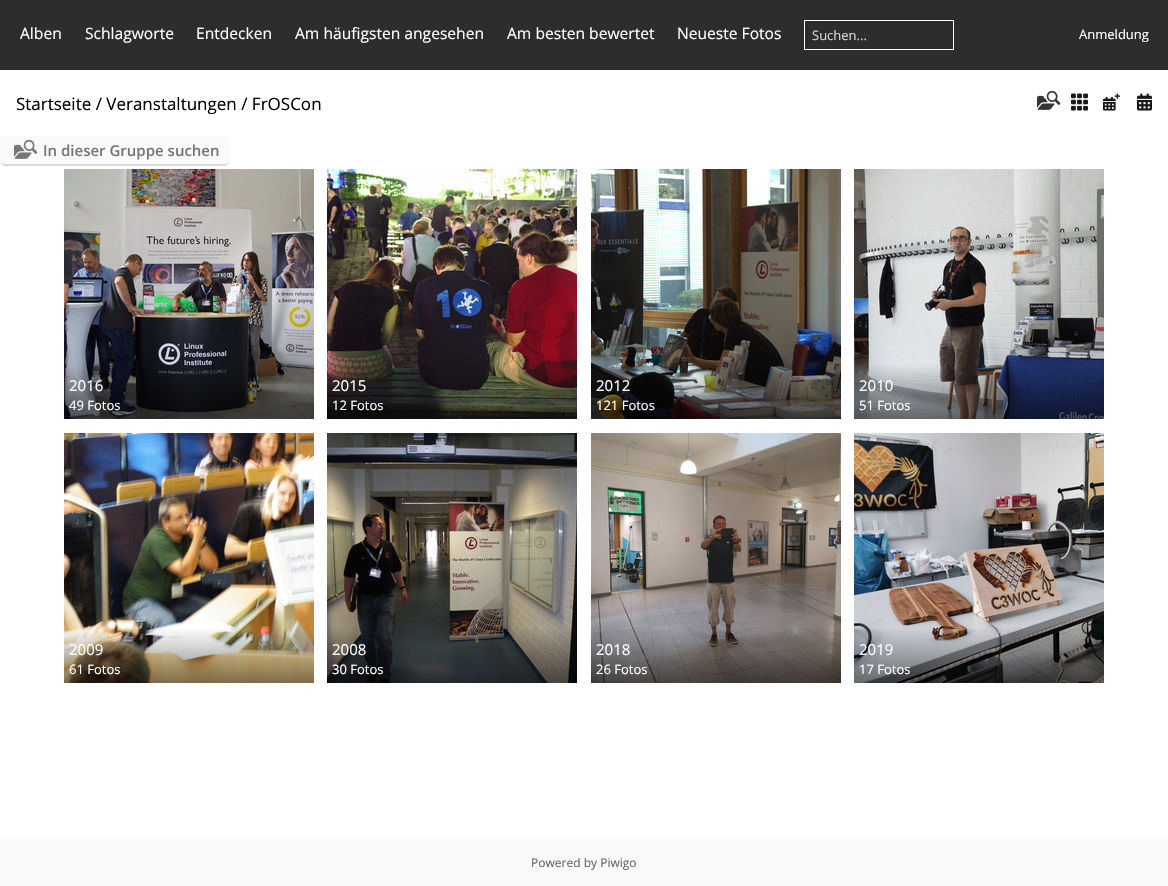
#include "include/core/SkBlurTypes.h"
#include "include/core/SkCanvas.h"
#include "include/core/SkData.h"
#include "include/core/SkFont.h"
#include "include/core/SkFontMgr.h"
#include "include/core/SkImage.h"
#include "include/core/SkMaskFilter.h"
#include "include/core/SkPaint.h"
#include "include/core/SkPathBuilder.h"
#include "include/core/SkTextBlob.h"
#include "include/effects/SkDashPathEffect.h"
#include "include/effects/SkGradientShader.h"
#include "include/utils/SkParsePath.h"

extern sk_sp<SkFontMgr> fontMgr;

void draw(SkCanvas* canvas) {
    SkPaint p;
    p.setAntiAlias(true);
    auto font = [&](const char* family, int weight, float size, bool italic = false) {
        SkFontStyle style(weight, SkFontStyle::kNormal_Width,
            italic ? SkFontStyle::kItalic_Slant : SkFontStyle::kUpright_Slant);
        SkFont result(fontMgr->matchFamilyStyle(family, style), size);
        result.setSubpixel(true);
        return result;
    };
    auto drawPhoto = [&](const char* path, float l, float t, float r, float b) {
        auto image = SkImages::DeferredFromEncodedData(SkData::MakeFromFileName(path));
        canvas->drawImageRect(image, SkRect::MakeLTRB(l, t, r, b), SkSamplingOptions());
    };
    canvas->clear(0xFFFFFFFF);
    p.setColor(0xFF2D2D2D);
    canvas->drawRect(SkRect::MakeLTRB(0, 0, 1168, 70), p);
    auto font1 = font("Open Sans", 400, 15.6f);
    p.setColor(0xFFFFFFFF);
    {
        const struct { const char* s; float x, y; } items[] = {
            {"Alben", 20, 39},
            {"Schlagworte", 85, 39},
            {"Entdecken", 196, 39},
            {"Am häufigsten angesehen", 295, 39},
            {"Am besten bewertet", 507, 39},
            {"Neueste Fotos", 677, 39},
        };
        for (auto [s, x, y] : items) {
            canvas->drawString(s, x, y, font1, p);
        }
    }
    p.setStyle(SkPaint::kStroke_Style);
    p.setStrokeWidth(1);
    canvas->drawRect(SkRect::MakeLTRB(804.5f, 20.5f, 953.5f, 49.5f), p);
    auto font2 = font("Open Sans", 400, 13);
    p.setStyle(SkPaint::kFill_Style);
    p.setColor(0xFFD6D6D6);
    canvas->drawString("Suchen...", 812, 40, font2, p);
    p.setColor(0xFFFFFFFF);
    canvas->drawString("Anmeldung", 1079, 39, font2, p);
    auto font3 = font("Open Sans", 400, 17);
    p.setColor(0xFF000000);
    canvas->drawString("Startseite / Veranstaltungen / FrOSCon", 16, 110, font3, p);
    drawPhoto("media/1.png", 1037, 90, 1061, 110);
    drawPhoto("media/2.png", 1071, 93, 1088, 111);
    drawPhoto("media/3.png", 1103, 93, 1120, 111);
    drawPhoto("media/4.png", 1137, 93, 1152, 111);
    p.setColor(0xFFDBDBDB);
    canvas->drawPath(SkPathBuilder().moveTo(0, 159).cubicTo(0, 162, 1, 166, 5, 166).lineTo(225, 166).cubicTo(229, 165, 229, 162, 229, 159).cubicTo(229, 162, 227, 164, 224, 164).lineTo(5, 164).cubicTo(2, 164, 0, 162, 0, 159).close().detach(), p);
    p.setColor(0xFFFAFAFA);
    canvas->drawRoundRect(SkRect::MakeLTRB(0, 136, 229, 164), 5, 5, p);
    drawPhoto("media/5.png", 14, 139, 38, 159);
    auto font4 = font("Open Sans", 600, 15);
    p.setColor(0xFF777777);
    canvas->drawString("In dieser Gruppe suchen", 43, 156, font4, p);
    drawPhoto("media/6.png", 64, 169, 314, 419);
    auto font5 = font("Open Sans", 400, 15);
    p.setColor(0xFFFFFFFF);
    canvas->drawString("2016", 69, 391, font5, p);
    canvas->drawString("49 Fotos", 69, 410, font2, p);
    drawPhoto("media/7.png", 327, 169, 577, 419);
    canvas->drawString("2015", 332, 391, font5, p);
    canvas->drawString("12 Fotos", 332, 410, font2, p);
    drawPhoto("media/8.png", 591, 169, 841, 419);
    canvas->drawString("2012", 596, 391, font5, p);
    canvas->drawString("121 Fotos", 596, 410, font2, p);
    drawPhoto("media/9.png", 854, 169, 1104, 419);
    canvas->drawString("2010", 859, 391, font5, p);
    canvas->drawString("51 Fotos", 859, 410, font2, p);
    drawPhoto("media/10.png", 64, 433, 314, 683);
    canvas->drawString("2009", 69, 655, font5, p);
    canvas->drawString("61 Fotos", 69, 674, font2, p);
    drawPhoto("media/11.png", 327, 433, 577, 683);
    canvas->drawString("2008", 332, 655, font5, p);
    canvas->drawString("30 Fotos", 332, 674, font2, p);
    drawPhoto("media/12.png", 591, 433, 841, 683);
    canvas->drawString("2018", 596, 655, font5, p);
    canvas->drawString("26 Fotos", 596, 674, font2, p);
    drawPhoto("media/13.png", 854, 433, 1104, 683);
    canvas->drawString("2019", 859, 655, font5, p);
    canvas->drawString("17 Fotos", 859, 674, font2, p);
    p.setColor(0xFFF9F9F9);
    canvas->drawRect(SkRect::MakeLTRB(0, 839, 1168, 886), p);
    auto font6 = font("Open Sans", 400, 12);
    p.setColor(0xFF666666);
    canvas->drawString("Powered by Piwigo", 531, 867, font6, p);
}
